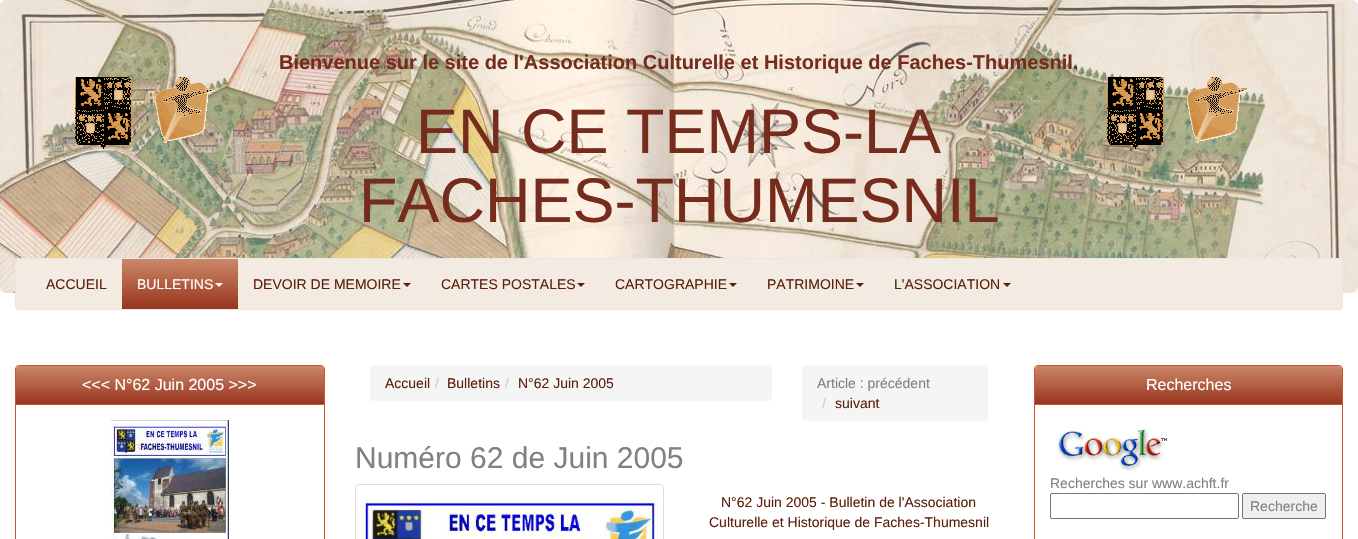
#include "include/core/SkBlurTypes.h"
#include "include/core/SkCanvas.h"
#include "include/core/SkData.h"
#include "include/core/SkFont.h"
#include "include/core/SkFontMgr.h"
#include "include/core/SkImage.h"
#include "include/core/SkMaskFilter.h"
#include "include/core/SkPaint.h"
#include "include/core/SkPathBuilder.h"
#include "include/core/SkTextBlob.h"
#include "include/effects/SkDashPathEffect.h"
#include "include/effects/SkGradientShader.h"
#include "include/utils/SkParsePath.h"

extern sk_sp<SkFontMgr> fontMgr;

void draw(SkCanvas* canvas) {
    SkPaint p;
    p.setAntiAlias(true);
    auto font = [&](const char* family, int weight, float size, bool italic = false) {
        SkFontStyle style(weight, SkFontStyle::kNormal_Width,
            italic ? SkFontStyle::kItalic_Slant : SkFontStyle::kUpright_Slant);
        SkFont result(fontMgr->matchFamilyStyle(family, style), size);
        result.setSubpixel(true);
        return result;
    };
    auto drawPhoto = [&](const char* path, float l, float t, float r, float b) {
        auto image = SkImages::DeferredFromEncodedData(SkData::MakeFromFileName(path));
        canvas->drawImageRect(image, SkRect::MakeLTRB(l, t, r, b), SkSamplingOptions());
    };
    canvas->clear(0xFFFFFFFF);
    drawPhoto("media/1.png", 0, 0, 1358, 293);
    auto font1 = font("Liberation Sans", 700, 20);
    p.setColor(0xFF752C1D);
    canvas->drawString("Bienvenue sur le site de l'Association Culturelle et Historique de Faches-Thumesnil.", 279, 69, font1, p);
    drawPhoto("media/2.png", 75, 77, 215, 149);
    auto font2 = font("Liberation Sans", 400, 63);
    canvas->drawString("EN CE TEMPS-LA", 416, 153, font2, p);
    canvas->drawString("FACHES-THUMESNIL", 359, 222, font2, p);
    drawPhoto("media/3.png", 1107, 77, 1247, 149);
    p.setColor(0xFFF3EAE1);
    canvas->drawRoundRect(SkRect::MakeLTRB(15.5f, 258.5f, 1342.5f, 309.5f), 3.5f, 3.5f, p);
    p.setStyle(SkPaint::kStroke_Style);
    p.setStrokeWidth(1);
    p.setColor(0xFFE7E7E7);
    canvas->drawRoundRect(SkRect::MakeLTRB(15.5f, 258.5f, 1342.5f, 309.5f), 3.5f, 3.5f, p);
    auto font3 = font("Liberation Sans", 400, 14);
    p.setStyle(SkPaint::kFill_Style);
    p.setColor(0xFF5C1F0B);
    canvas->drawString("ACCUEIL", 46, 289, font3, p);
    {
        const SkColor colors[] = {0xFFCC8768, 0xFF98351F};
        const float stops[] = {0, 1};
        const SkPoint ends[] = {{180, 259}, {180, 309}};
        p.setShader(SkGradientShader::MakeLinear(ends, colors, stops, 2, SkTileMode::kClamp));
        p.setAlpha(255);
    }
    canvas->drawRect(SkRect::MakeLTRB(122, 259, 238, 309), p);
    p.setShader(nullptr);
    p.setColor(0xFFFFFFFF);
    canvas->drawString("BULLETINS", 137, 289, font3, p);
    canvas->drawPath(SkPathBuilder().moveTo(215, 283).lineTo(223, 283).lineTo(219, 287).close().detach(), p);
    p.setColor(0xFF5C1F0B);
    canvas->drawString("DEVOIR DE MEMOIRE", 253, 289, font3, p);
    canvas->drawPath(SkPathBuilder().moveTo(403, 283).lineTo(411, 283).lineTo(407, 287).close().detach(), p);
    canvas->drawString("CARTES POSTALES", 441, 289, font3, p);
    canvas->drawPath(SkPathBuilder().moveTo(577, 283).lineTo(585, 283).lineTo(581, 287).close().detach(), p);
    canvas->drawString("CARTOGRAPHIE", 615, 289, font3, p);
    canvas->drawPath(SkPathBuilder().moveTo(729, 283).lineTo(737, 283).lineTo(733, 287).close().detach(), p);
    canvas->drawString("PATRIMOINE", 767, 289, font3, p);
    canvas->drawPath(SkPathBuilder().moveTo(856, 283).lineTo(864, 283).lineTo(860, 287).close().detach(), p);
    canvas->drawString("L'ASSOCIATION", 894, 289, font3, p);
    canvas->drawPath(SkPathBuilder().moveTo(1003, 283).lineTo(1011, 283).lineTo(1007, 287).close().detach(), p);
    p.setStyle(SkPaint::kStroke_Style);
    p.setColor(0xFFCE542E);
    canvas->drawRoundRect(SkRect::MakeLTRB(15.5f, 365.5f, 324.5f, 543.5f), 3.5f, 3.5f, p);
    p.setStyle(SkPaint::kFill_Style);
    {
        const SkColor colors[] = {0xFFCC8768, 0xFF98351F};
        const float stops[] = {0, 1};
        const SkPoint ends[] = {{170, 366}, {170, 404}};
        p.setShader(SkGradientShader::MakeLinear(ends, colors, stops, 2, SkTileMode::kClamp));
        p.setAlpha(255);
    }
    canvas->drawPath(SkPathBuilder().moveTo(19, 366).lineTo(321, 366).cubicTo(322.5f, 366, 324, 367.5f, 324, 369).lineTo(324, 404).lineTo(16, 404).lineTo(16, 369).cubicTo(16, 367.5f, 17.5f, 366, 19, 366).close().detach(), p);
    p.setShader(nullptr);
    p.setColor(0xFFCE542E);
    canvas->drawRect(SkRect::MakeLTRB(16, 404, 324, 405), p);
    auto font4 = font("Liberation Sans", 400, 16);
    p.setColor(0xFFFFFFFF);
    canvas->drawString("<<< N°62 Juin 2005 >>>", 82, 390, font4, p);
    drawPhoto("media/4.png", 111, 420, 229, 539);
    p.setColor(0xFFF5F5F5);
    canvas->drawRoundRect(SkRect::MakeLTRB(370, 365, 772, 401), 4, 4, p);
    p.setColor(0xFF5C1F0B);
    canvas->drawString("Accueil", 385, 388, font3, p);
    p.setColor(0xFFCCCCCC);
    canvas->drawString("/", 435, 388, font3, p);
    p.setColor(0xFF5C1F0B);
    canvas->drawString("Bulletins", 447, 388, font3, p);
    p.setColor(0xFFCCCCCC);
    canvas->drawString("/", 505, 388, font3, p);
    p.setColor(0xFF5C1F0B);
    canvas->drawString("N°62 Juin 2005", 518, 388, font3, p);
    p.setColor(0xFFF5F5F5);
    canvas->drawRoundRect(SkRect::MakeLTRB(802, 365, 988, 421), 4, 4, p);
    p.setColor(0xFF818181);
    canvas->drawString("Article : précédent", 817, 388, font3, p);
    p.setColor(0xFFCCCCCC);
    canvas->drawString("/", 822, 408, font3, p);
    p.setColor(0xFF5C1F0B);
    canvas->drawString("suivant", 835, 408, font3, p);
    auto font5 = font("Liberation Sans", 400, 30);
    p.setColor(0xFF818181);
    canvas->drawString("Numéro 62 de Juin 2005", 355, 468, font5, p);
    p.setStyle(SkPaint::kStroke_Style);
    p.setColor(0xFFDDDDDD);
    canvas->drawRoundRect(SkRect::MakeLTRB(355.5f, 484.5f, 663.5f, 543.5f), 3.5f, 3.5f, p);
    drawPhoto("media/5.png", 360, 501, 659, 539);
    p.setStyle(SkPaint::kFill_Style);
    p.setColor(0xFF5C1F0B);
    canvas->drawString("N°62 Juin 2005 - Bulletin de l'Association", 721, 507, font3, p);
    canvas->drawString("Culturelle et Historique de Faches-Thumesnil", 709, 527, font3, p);
    p.setStyle(SkPaint::kStroke_Style);
    p.setColor(0xFFCE542E);
    canvas->drawRoundRect(SkRect::MakeLTRB(1034.5f, 365.5f, 1342.5f, 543.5f), 3.5f, 3.5f, p);
    p.setStyle(SkPaint::kFill_Style);
    {
        const SkColor colors[] = {0xFFCC8768, 0xFF98351F};
        const float stops[] = {0, 1};
        const SkPoint ends[] = {{1189, 366}, {1189, 404}};
        p.setShader(SkGradientShader::MakeLinear(ends, colors, stops, 2, SkTileMode::kClamp));
        p.setAlpha(255);
    }
    canvas->drawPath(SkPathBuilder().moveTo(1038, 366).lineTo(1339, 366).cubicTo(1340.5f, 366, 1342, 367.5f, 1342, 369).lineTo(1342, 404).lineTo(1035, 404).lineTo(1035, 369).cubicTo(1035, 367.5f, 1036.5f, 366, 1038, 366).close().detach(), p);
    p.setShader(nullptr);
    p.setColor(0xFFCE542E);
    canvas->drawRect(SkRect::MakeLTRB(1035, 404, 1342, 405), p);
    p.setColor(0xFFFFFFFF);
    canvas->drawString("Recherches", 1146, 390, font4, p);
    drawPhoto("media/6.png", 1057, 429, 1167, 471);
    p.setColor(0xFF818181);
    canvas->drawString("Recherches sur www.achft.fr", 1050, 488, font3, p);
    p.setStyle(SkPaint::kStroke_Style);
    p.setColor(0xFF767676);
    canvas->drawRoundRect(SkRect::MakeLTRB(1050.5f, 493.5f, 1238.5f, 518.5f), 1.5f, 1.5f, p);
    p.setStyle(SkPaint::kFill_Style);
    p.setColor(0xFFEFEFEF);
    canvas->drawRoundRect(SkRect::MakeLTRB(1242.5f, 493.5f, 1325.5f, 518.5f), 1.5f, 1.5f, p);
    p.setStyle(SkPaint::kStroke_Style);
    p.setColor(0xFF767676);
    canvas->drawRoundRect(SkRect::MakeLTRB(1242.5f, 493.5f, 1325.5f, 518.5f), 1.5f, 1.5f, p);
    p.setStyle(SkPaint::kFill_Style);
    p.setColor(0xFF818181);
    canvas->drawString("Recherche", 1250, 511, font3, p);
}
